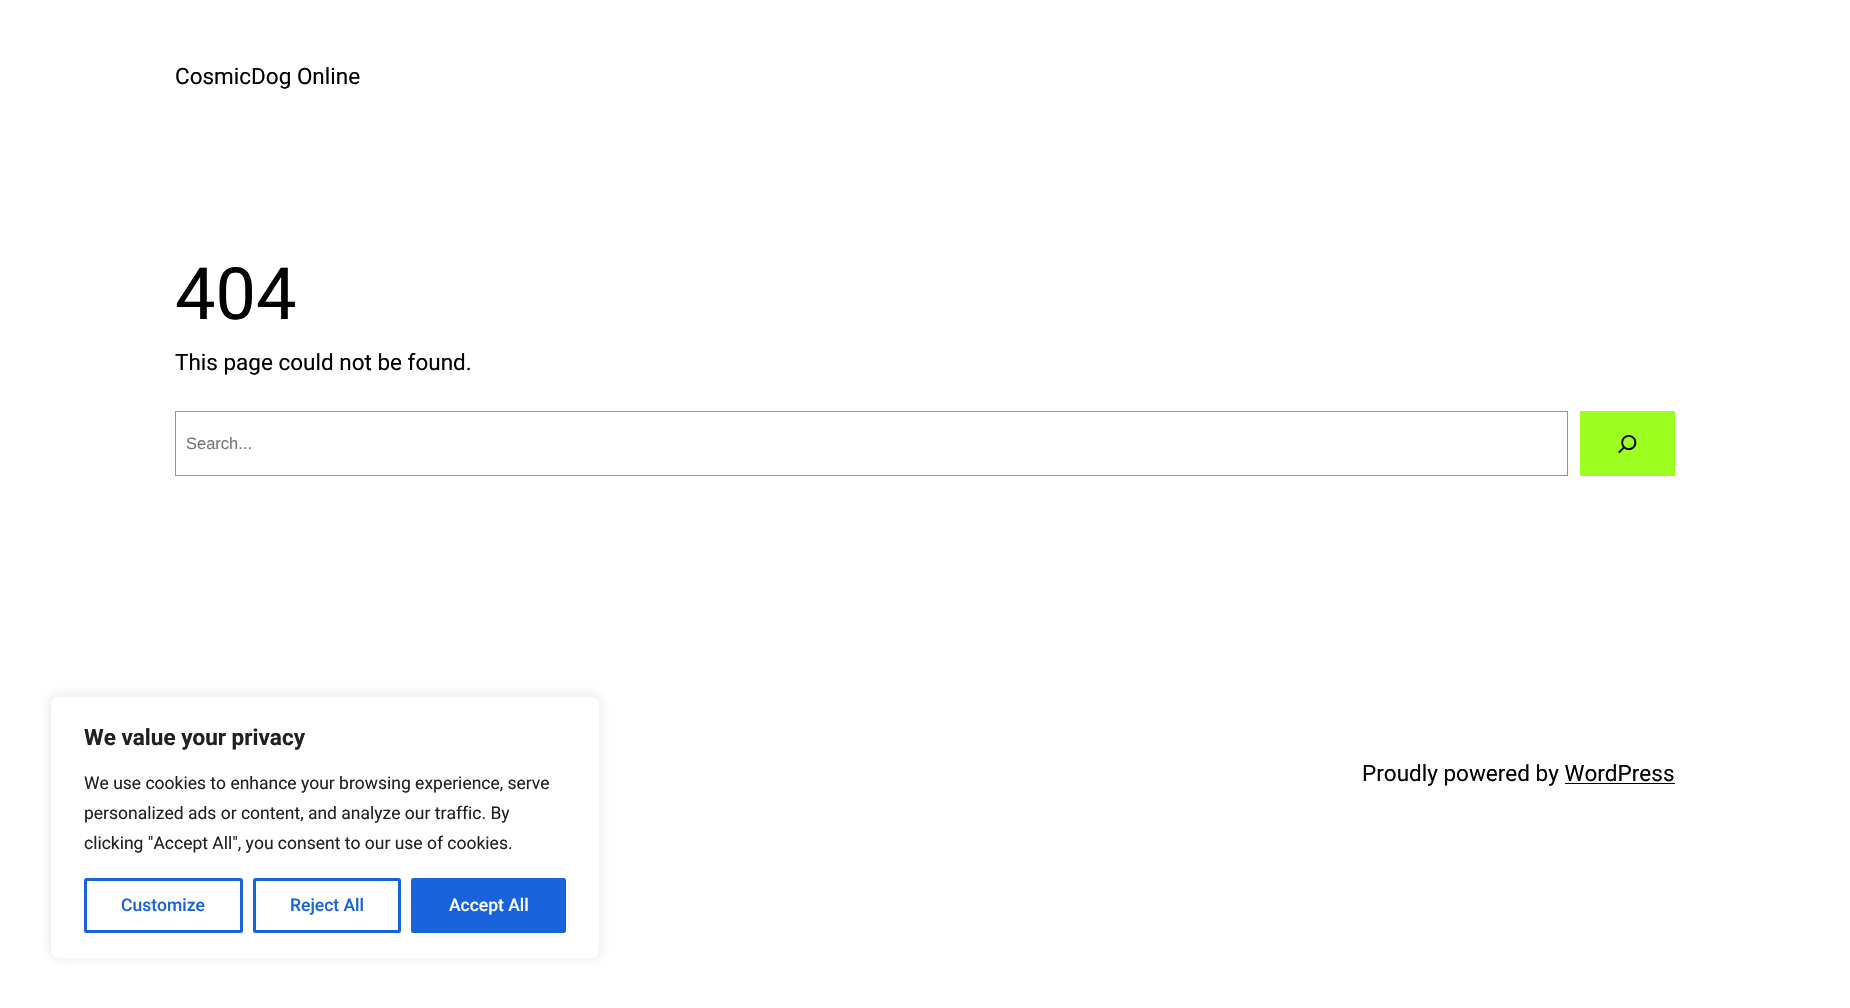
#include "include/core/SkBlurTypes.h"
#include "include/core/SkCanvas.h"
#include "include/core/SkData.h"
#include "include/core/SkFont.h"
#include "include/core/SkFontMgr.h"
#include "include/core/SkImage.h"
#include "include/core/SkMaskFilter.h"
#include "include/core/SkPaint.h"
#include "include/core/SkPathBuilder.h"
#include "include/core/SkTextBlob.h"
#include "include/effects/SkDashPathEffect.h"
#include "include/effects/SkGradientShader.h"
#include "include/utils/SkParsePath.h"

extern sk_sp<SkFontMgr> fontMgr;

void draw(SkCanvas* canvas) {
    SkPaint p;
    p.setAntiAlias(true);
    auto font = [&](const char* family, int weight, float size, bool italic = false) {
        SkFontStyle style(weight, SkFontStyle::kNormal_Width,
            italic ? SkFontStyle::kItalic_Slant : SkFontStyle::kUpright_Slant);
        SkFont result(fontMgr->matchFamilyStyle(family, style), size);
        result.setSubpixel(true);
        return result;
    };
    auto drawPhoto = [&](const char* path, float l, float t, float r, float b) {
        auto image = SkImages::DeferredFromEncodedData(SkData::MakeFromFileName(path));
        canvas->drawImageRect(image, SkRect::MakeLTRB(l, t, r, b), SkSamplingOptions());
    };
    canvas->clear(0xFFFFFFFF);
    auto font1 = font("Roboto", 400, 22.5f);
    p.setColor(0xFF000000);
    canvas->drawString("CosmicDog Online", 175, 84, font1, p);
    auto font2 = font("Roboto", 400, 72);
    canvas->drawString("404", 175, 319, font2, p);
    canvas->drawString("This page could not be found.", 175, 370, font1, p);
    p.setStyle(SkPaint::kStroke_Style);
    p.setStrokeWidth(1);
    p.setColor(0xFF949494);
    canvas->drawRect(SkRect::MakeLTRB(175.5f, 411.5f, 1567.5f, 475.5f), p);
    auto font3 = font("Liberation Sans", 400, 16.5f);
    p.setStyle(SkPaint::kFill_Style);
    p.setColor(0xFF757575);
    canvas->drawString("Search...", 186, 449, font3, p);
    p.setColor(0xFF9DFF20);
    canvas->drawRect(SkRect::MakeLTRB(1580, 411, 1675, 476), p);
    drawPhoto("media/1.png", 1618, 435, 1637, 454);
    p.setColor(0xFF000000);
    canvas->drawString("Proudly powered by WordPress", 1362, 781, font1, p);
    canvas->drawRect(SkRect::MakeLTRB(1565, 783, 1675, 784), p);
    p.setColor(0x4DACABAB);
    p.setMaskFilter(SkMaskFilter::MakeBlur(kNormal_SkBlurStyle, 6));
    canvas->drawRoundRect(SkRect::MakeLTRB(50, 695, 600, 958), 8, 8, p);
    p.setMaskFilter(nullptr);
    p.setColor(0xFFFFFFFF);
    canvas->drawRoundRect(SkRect::MakeLTRB(50.5f, 696.5f, 599.5f, 958.5f), 7.5f, 7.5f, p);
    p.setStyle(SkPaint::kStroke_Style);
    p.setColor(0xFFF4F4F4);
    canvas->drawRoundRect(SkRect::MakeLTRB(50.5f, 696.5f, 599.5f, 958.5f), 7.5f, 7.5f, p);
    auto font4 = font("Roboto", 700, 22.5f);
    p.setStyle(SkPaint::kFill_Style);
    p.setColor(0xFF212121);
    canvas->drawString("We value your privacy", 84, 745, font4, p);
    auto font5 = font("Roboto", 400, 17.5f);
    {
        const struct { const char* s; float x, y; } items[] = {
            {"We use cookies to enhance your browsing experience, serve", 84, 789},
            {"personalized ads or content, and analyze our traffic. By", 84, 819},
            {"clicking \"Accept All\", you consent to our use of cookies.", 84, 849},
        };
        for (auto [s, x, y] : items) {
            canvas->drawString(s, x, y, font5, p);
        }
    }
    p.setStyle(SkPaint::kStroke_Style);
    p.setStrokeWidth(3);
    p.setColor(0xFF1863DC);
    canvas->drawRoundRect(SkRect::MakeLTRB(85.5f, 879.5f, 241.5f, 931.5f), 1, 1, p);
    auto font6 = font("Roboto", 500, 17.5f);
    p.setStyle(SkPaint::kFill_Style);
    canvas->drawString("Customize", 121, 911, font6, p);
    p.setStyle(SkPaint::kStroke_Style);
    canvas->drawRoundRect(SkRect::MakeLTRB(254.5f, 879.5f, 399.5f, 931.5f), 1, 1, p);
    p.setStyle(SkPaint::kFill_Style);
    canvas->drawString("Reject All", 290, 911, font6, p);
    canvas->drawRoundRect(SkRect::MakeLTRB(412.5f, 879.5f, 564.5f, 931.5f), 1, 1, p);
    p.setStyle(SkPaint::kStroke_Style);
    canvas->drawRoundRect(SkRect::MakeLTRB(412.5f, 879.5f, 564.5f, 931.5f), 1, 1, p);
    p.setStyle(SkPaint::kFill_Style);
    p.setColor(0xFFFFFFFF);
    canvas->drawString("Accept All", 449, 911, font6, p);
}
